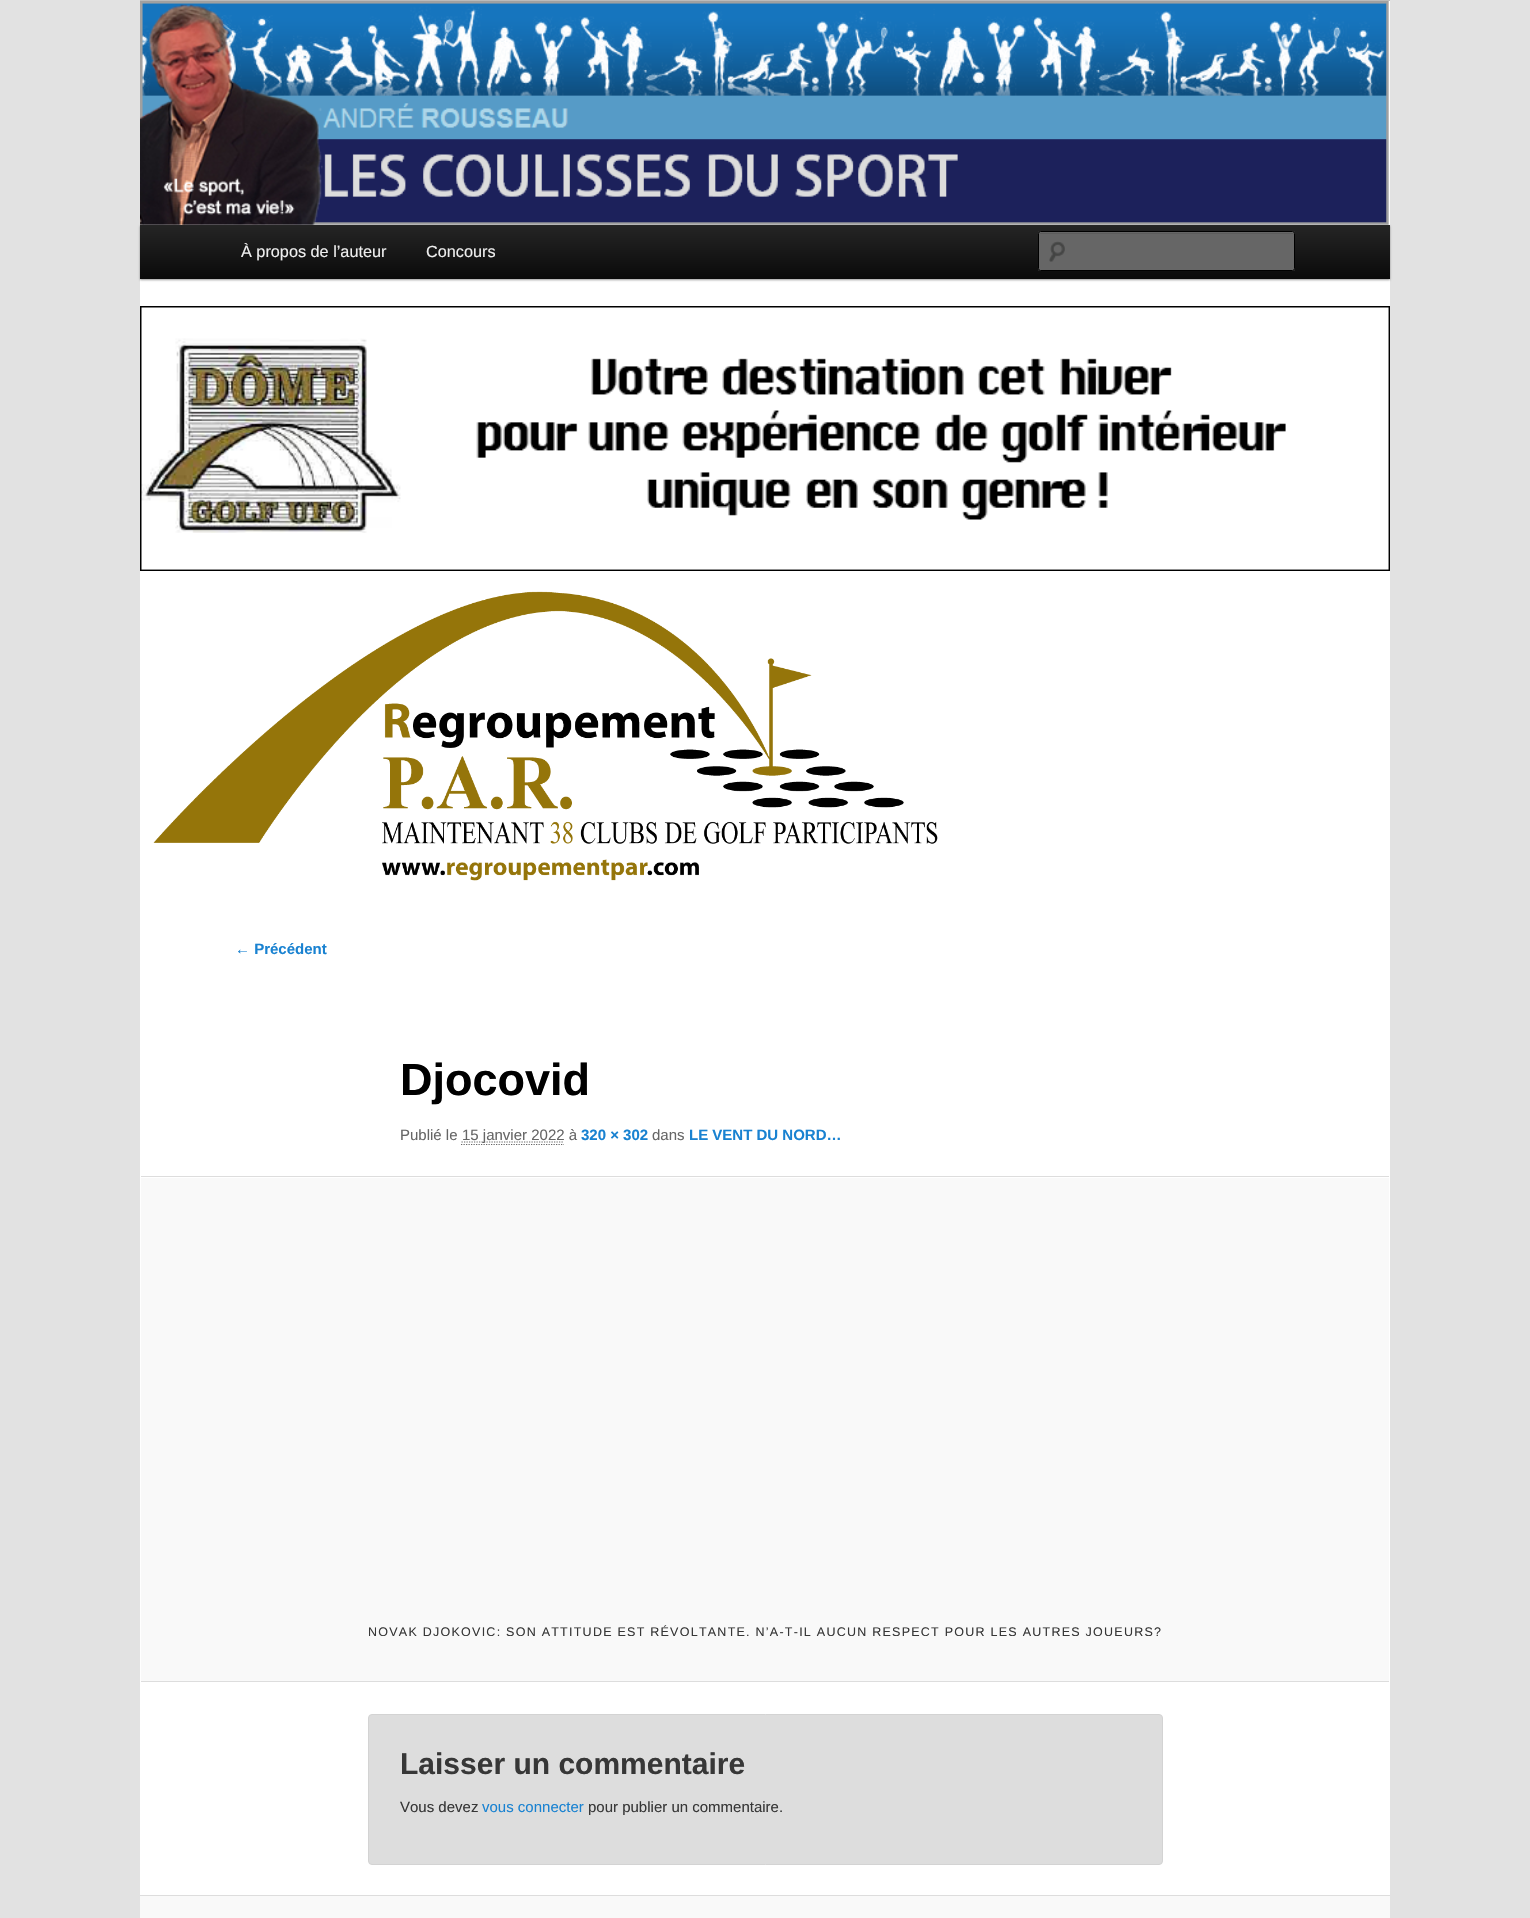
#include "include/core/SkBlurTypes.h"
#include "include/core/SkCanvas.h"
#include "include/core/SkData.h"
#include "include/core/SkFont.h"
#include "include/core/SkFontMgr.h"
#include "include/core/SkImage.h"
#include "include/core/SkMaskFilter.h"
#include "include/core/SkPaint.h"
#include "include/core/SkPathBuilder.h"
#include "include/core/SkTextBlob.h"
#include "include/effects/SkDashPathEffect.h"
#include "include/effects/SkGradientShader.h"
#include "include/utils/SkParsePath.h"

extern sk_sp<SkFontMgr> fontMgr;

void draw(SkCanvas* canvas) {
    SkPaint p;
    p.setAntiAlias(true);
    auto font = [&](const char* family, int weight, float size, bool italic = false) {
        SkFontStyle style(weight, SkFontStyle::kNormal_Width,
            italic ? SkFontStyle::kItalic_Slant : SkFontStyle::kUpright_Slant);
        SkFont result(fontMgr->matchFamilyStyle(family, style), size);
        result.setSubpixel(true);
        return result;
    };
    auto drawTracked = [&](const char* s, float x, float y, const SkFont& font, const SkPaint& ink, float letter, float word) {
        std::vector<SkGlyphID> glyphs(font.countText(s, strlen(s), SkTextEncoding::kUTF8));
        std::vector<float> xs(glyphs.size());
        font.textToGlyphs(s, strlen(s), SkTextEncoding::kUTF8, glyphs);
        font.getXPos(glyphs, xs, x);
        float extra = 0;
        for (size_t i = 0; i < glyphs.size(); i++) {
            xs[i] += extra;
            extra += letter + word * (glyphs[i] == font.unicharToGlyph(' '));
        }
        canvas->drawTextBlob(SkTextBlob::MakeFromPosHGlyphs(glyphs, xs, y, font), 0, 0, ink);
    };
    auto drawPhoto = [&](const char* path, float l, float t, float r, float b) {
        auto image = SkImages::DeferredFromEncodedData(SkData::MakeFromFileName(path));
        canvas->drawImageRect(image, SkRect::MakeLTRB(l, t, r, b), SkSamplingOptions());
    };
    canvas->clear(0xFFE2E2E2);
    p.setColor(0xFFFFFFFF);
    canvas->drawRect(SkRect::MakeLTRB(140, 224, 1390, 1895), p);
    p.setColor(0xFFBBBBBB);
    canvas->drawRect(SkRect::MakeLTRB(140, 0, 1390, 1), p);
    p.setColor(0x66000000);
    p.setMaskFilter(SkMaskFilter::MakeBlur(kNormal_SkBlurStyle, 1));
    canvas->drawRect(SkRect::MakeLTRB(140, 226, 1390, 280), p);
    p.setMaskFilter(nullptr);
    drawPhoto("media/1.png", 140, 1, 1390, 225);
    {
        const SkColor colors[] = {0xFF252525, 0xFF0A0A0A};
        const float stops[] = {0, 1};
        const SkPoint ends[] = {{765, 225}, {765, 279}};
        p.setShader(SkGradientShader::MakeLinear(ends, colors, stops, 2, SkTileMode::kClamp));
        p.setAlpha(255);
    }
    canvas->drawRect(SkRect::MakeLTRB(140, 225, 1390, 279), p);
    auto font1 = font("Liberation Sans", 400, 16.25f);
    p.setShader(nullptr);
    p.setColor(0xFFEEEEEE);
    canvas->drawString("À propos de l’auteur", 241, 257, font1, p);
    canvas->drawString("Concours", 426, 257, font1, p);
    p.setColor(0xFF666666);
    canvas->drawRoundRect(SkRect::MakeLTRB(1038, 231, 1295, 271), 2.5f, 2.5f, p);
    drawPhoto("media/2.png", 1049, 241, 1065, 262);
    p.setColor(0xFF5C5C5C);
    canvas->drawPath(SkPathBuilder().moveTo(1040, 234).lineTo(1292, 234).cubicTo(1293, 234, 1294, 234, 1294, 235).lineTo(1294, 233).lineTo(1040, 233).cubicTo(1039, 233, 1039, 234, 1039, 235).cubicTo(1039, 234, 1039, 234, 1040, 234).close().detach(), p);
    p.setStyle(SkPaint::kStroke_Style);
    p.setStrokeWidth(1);
    p.setColor(0xFF000000);
    canvas->drawRoundRect(SkRect::MakeLTRB(1038.5f, 231.5f, 1294.5f, 270.5f), 2, 2, p);
    drawPhoto("media/3.png", 140, 306, 1390, 571);
    drawPhoto("media/4.png", 153, 591, 938, 881);
    auto font2 = font("Liberation Sans", 700, 15);
    p.setStyle(SkPaint::kFill_Style);
    p.setColor(0xFF1982D1);
    canvas->drawString("← Précédent", 235, 954, font2, p);
    auto font3 = font("Liberation Sans", 700, 45);
    p.setColor(0xFF000000);
    canvas->drawString("Djocovid", 400, 1095, font3, p);
    auto font4 = font("Liberation Sans", 400, 15);
    p.setColor(0xFF666666);
    canvas->drawString("Publié le", 400, 1140, font4, p);
    p.setStyle(SkPaint::kStroke_Style);
    p.setStrokeWidth(1.2f);
    p.setPathEffect(SkDashPathEffect::Make({{1.25f, 1.25f}}, 0));
    canvas->drawPath(SkPathBuilder().moveTo(461, 1144.5f).lineTo(564, 1144.5f).detach(), p);
    p.setPathEffect(nullptr);
    p.setPathEffect(SkDashPathEffect::Make({{1.25f, 1.25f}}, 0));
    canvas->drawPath(SkPathBuilder().moveTo(461.5f, 1142).lineTo(564, 1142).detach(), p);
    p.setPathEffect(nullptr);
    p.setStyle(SkPaint::kFill_Style);
    canvas->drawString("15 janvier 2022 à", 462, 1140, font4, p);
    p.setColor(0xFF1982D1);
    canvas->drawString("320 × 302", 581, 1140, font2, p);
    p.setColor(0xFF666666);
    canvas->drawString("dans", 652, 1140, font4, p);
    p.setColor(0xFF1982D1);
    canvas->drawString("LE VENT DU NORD…", 689, 1140, font2, p);
    {
        const struct { float l, t, r, b; SkColor color; } items[] = {
            {141, 1178, 1389, 1681, 0xFFF9F9F9},
            {141, 1176, 1389, 1177, 0xFFDDDDDD},
            {141, 1681, 1389, 1682, 0xFFDDDDDD},
        };
        for (auto [l, t, r, b, color] : items) {
            p.setColor(color);
            canvas->drawRect(SkRect::MakeLTRB(l, t, r, b), p);
        }
    }
    auto font5 = font("Liberation Sans", 400, 12.5f);
    p.setColor(0xFF373737);
    drawTracked("NOVAK DJOKOVIC: SON ATTITUDE EST RÉVOLTANTE. N’A-T-IL AUCUN RESPECT POUR LES AUTRES JOUEURS?", 368, 1636, font5, p, 1.25f, 0);
    p.setColor(0xFFDDDDDD);
    canvas->drawRoundRect(SkRect::MakeLTRB(368.5f, 1714.5f, 1162.5f, 1864.5f), 3.5f, 3.5f, p);
    p.setStyle(SkPaint::kStroke_Style);
    p.setStrokeWidth(1);
    p.setColor(0xFFD3D3D3);
    canvas->drawRoundRect(SkRect::MakeLTRB(368.5f, 1714.5f, 1162.5f, 1864.5f), 3.5f, 3.5f, p);
    auto font6 = font("Liberation Sans", 700, 30);
    p.setStyle(SkPaint::kFill_Style);
    p.setColor(0xFF373737);
    canvas->drawString("Laisser un commentaire", 400, 1774, font6, p);
    canvas->drawString("Vous devez", 400, 1812, font4, p);
    p.setColor(0xFF1982D1);
    canvas->drawString("vous connecter", 482, 1812, font4, p);
    p.setColor(0xFF373737);
    canvas->drawString("pour publier un commentaire.", 588, 1812, font4, p);
    p.setColor(0xFFF9F9F9);
    canvas->drawRect(SkRect::MakeLTRB(140, 1896, 1390, 1918), p);
    p.setColor(0xFFDDDDDD);
    canvas->drawRect(SkRect::MakeLTRB(140, 1895, 1390, 1896), p);
}
